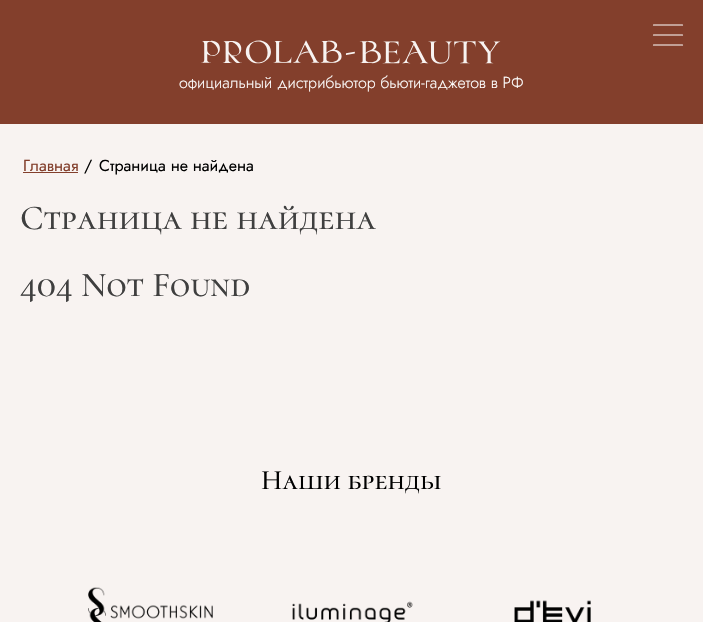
#include "include/core/SkBlurTypes.h"
#include "include/core/SkCanvas.h"
#include "include/core/SkData.h"
#include "include/core/SkFont.h"
#include "include/core/SkFontMgr.h"
#include "include/core/SkImage.h"
#include "include/core/SkMaskFilter.h"
#include "include/core/SkPaint.h"
#include "include/core/SkPathBuilder.h"
#include "include/core/SkTextBlob.h"
#include "include/effects/SkDashPathEffect.h"
#include "include/effects/SkGradientShader.h"
#include "include/utils/SkParsePath.h"

extern sk_sp<SkFontMgr> fontMgr;

void draw(SkCanvas* canvas) {
    SkPaint p;
    p.setAntiAlias(true);
    auto font = [&](const char* family, int weight, float size, bool italic = false) {
        SkFontStyle style(weight, SkFontStyle::kNormal_Width,
            italic ? SkFontStyle::kItalic_Slant : SkFontStyle::kUpright_Slant);
        SkFont result(fontMgr->matchFamilyStyle(family, style), size);
        result.setSubpixel(true);
        return result;
    };
    auto drawPhoto = [&](const char* path, float l, float t, float r, float b) {
        auto image = SkImages::DeferredFromEncodedData(SkData::MakeFromFileName(path));
        canvas->drawImageRect(image, SkRect::MakeLTRB(l, t, r, b), SkSamplingOptions());
    };
    canvas->clear(0xFFF8F3F1);
    p.setColor(0xFF833F2C);
    canvas->drawRect(SkRect::MakeLTRB(0, 0, 703, 124), p);
    p.setStyle(SkPaint::kStroke_Style);
    p.setStrokeWidth(1.2f);
    p.setStrokeCap(SkPaint::kRound_Cap);
    p.setStrokeJoin(SkPaint::kRound_Join);
    p.setColor(0xFFFFFFFF);
    canvas->drawPath(SkPathBuilder().moveTo(653.5f, 25).lineTo(682.5f, 25).moveTo(653.5f, 45).lineTo(682.5f, 45).moveTo(653.5f, 35).lineTo(682.5f, 35).detach(), p);
    drawPhoto("media/1.png", 201, 40, 501, 64);
    auto font1 = font("Jost", 300, 16);
    p.setStyle(SkPaint::kFill_Style);
    canvas->drawString("официальный дистрибьютор бьюти-гаджетов в РФ", 179, 88, font1, p);
    auto font2 = font("Jost", 400, 16);
    p.setColor(0xFF833F2C);
    canvas->drawString("Главная", 23, 171, font2, p);
    canvas->drawRect(SkRect::MakeLTRB(23, 172, 78, 173), p);
    p.setColor(0xFF000000);
    canvas->drawString("/", 84, 171, font2, p);
    canvas->drawString("Страница не найдена", 99, 171, font2, p);
    auto font3 = font("Cormorant SC", 500, 35);
    p.setColor(0xFF3F3F3F);
    canvas->drawString("Страница не найдена", 20, 229, font3, p);
    canvas->drawString("404 Not Found", 20, 296, font3, p);
    auto font4 = font("Cormorant SC", 500, 28);
    p.setColor(0xFF000000);
    canvas->drawString("Наши бренды", 261, 489, font4, p);
    drawPhoto("media/2.png", 88, 587, 213, 622);
    drawPhoto("media/3.png", 292, 601, 413, 622);
    drawPhoto("media/4.png", 514, 600, 591, 622);
}
